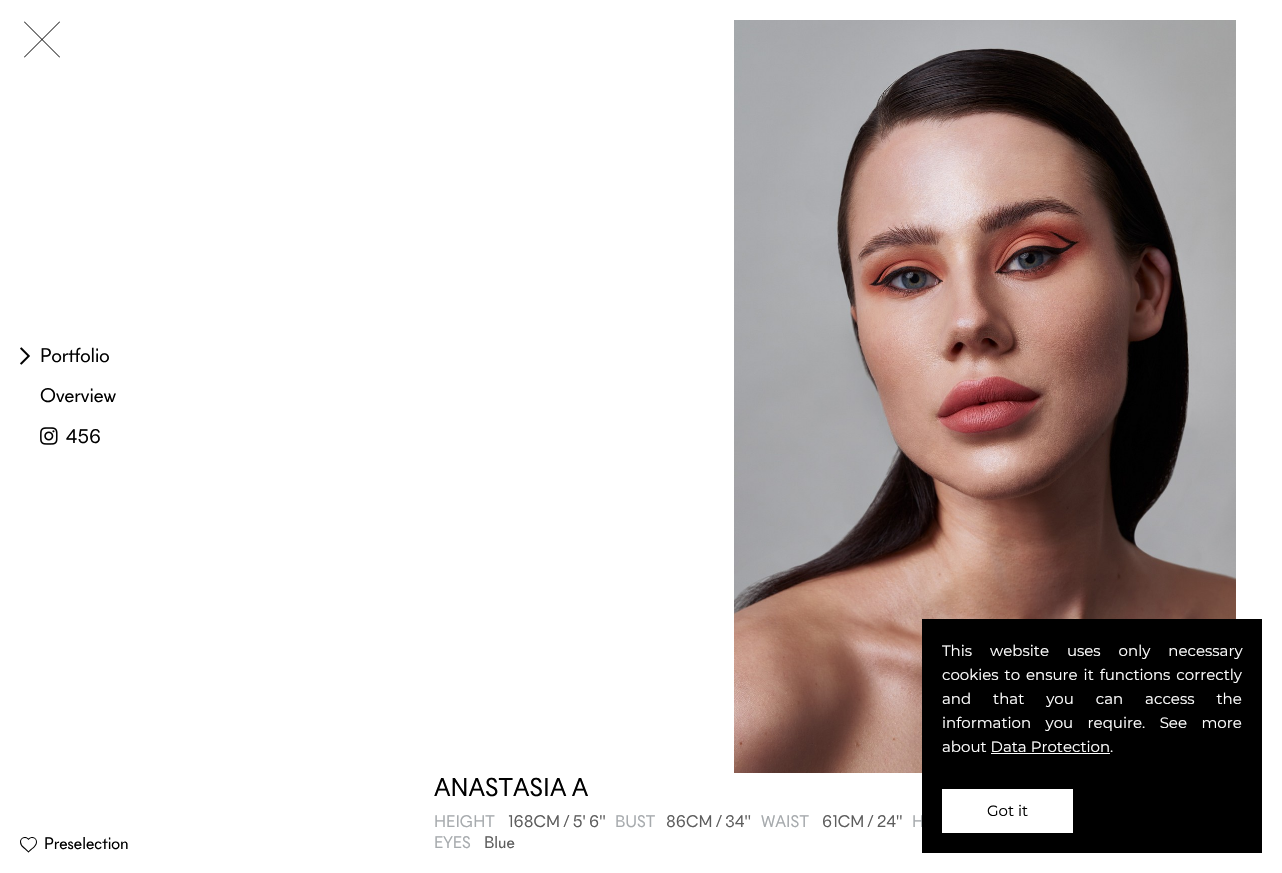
#include "include/core/SkBlurTypes.h"
#include "include/core/SkCanvas.h"
#include "include/core/SkData.h"
#include "include/core/SkFont.h"
#include "include/core/SkFontMgr.h"
#include "include/core/SkImage.h"
#include "include/core/SkMaskFilter.h"
#include "include/core/SkPaint.h"
#include "include/core/SkPathBuilder.h"
#include "include/core/SkTextBlob.h"
#include "include/effects/SkDashPathEffect.h"
#include "include/effects/SkGradientShader.h"
#include "include/utils/SkParsePath.h"

extern sk_sp<SkFontMgr> fontMgr;

void draw(SkCanvas* canvas) {
    SkPaint p;
    p.setAntiAlias(true);
    auto font = [&](const char* family, int weight, float size, bool italic = false) {
        SkFontStyle style(weight, SkFontStyle::kNormal_Width,
            italic ? SkFontStyle::kItalic_Slant : SkFontStyle::kUpright_Slant);
        SkFont result(fontMgr->matchFamilyStyle(family, style), size);
        result.setSubpixel(true);
        return result;
    };
    auto drawTracked = [&](const char* s, float x, float y, const SkFont& font, const SkPaint& ink, float letter, float word) {
        std::vector<SkGlyphID> glyphs(font.countText(s, strlen(s), SkTextEncoding::kUTF8));
        std::vector<float> xs(glyphs.size());
        font.textToGlyphs(s, strlen(s), SkTextEncoding::kUTF8, glyphs);
        font.getXPos(glyphs, xs, x);
        float extra = 0;
        for (size_t i = 0; i < glyphs.size(); i++) {
            xs[i] += extra;
            extra += letter + word * (glyphs[i] == font.unicharToGlyph(' '));
        }
        canvas->drawTextBlob(SkTextBlob::MakeFromPosHGlyphs(glyphs, xs, y, font), 0, 0, ink);
    };
    auto drawPhoto = [&](const char* path, float l, float t, float r, float b) {
        auto image = SkImages::DeferredFromEncodedData(SkData::MakeFromFileName(path));
        canvas->drawImageRect(image, SkRect::MakeLTRB(l, t, r, b), SkSamplingOptions());
    };
    canvas->clear(0xFFFFFFFF);
    p.setColor(0xFF000000);
    canvas->drawPath(SkPathBuilder().moveTo(24.5f, 21.5f).lineTo(60, 57).lineTo(59.5f, 57.5f).lineTo(24, 22).close().detach(), p);
    canvas->drawPath(SkPathBuilder().moveTo(24, 57).lineTo(59.5f, 21.5f).lineTo(60, 22).lineTo(24.5f, 57.5f).close().detach(), p);
    drawPhoto("media/1.png", 20, 347, 30, 365);
    auto font1 = font("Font", 400, 20);
    canvas->drawString("Portfolio", 40, 362, font1, p);
    canvas->drawString("Overview", 40, 402, font1, p);
    drawPhoto("media/2.png", 40, 427, 58, 445);
    canvas->drawString("456", 66, 443, font1, p);
    drawPhoto("media/3.png", 734, 20, 1236, 773);
    drawPhoto("media/4.png", 20, 837, 37, 853);
    auto font2 = font("Font", 400, 17);
    canvas->drawString("Preselection", 44, 849, font2, p);
    auto font3 = font("Font", 400, 26);
    canvas->drawString("ANASTASIA A", 434, 796, font3, p);
    p.setColor(0xFFA6AAAD);
    canvas->drawString("HEIGHT", 434, 827, font2, p);
    p.setColor(0xFF5D5D5D);
    canvas->drawString("168CM / 5' 6''", 508, 827, font2, p);
    p.setColor(0xFFA6AAAD);
    canvas->drawString("BUST", 615, 827, font2, p);
    p.setColor(0xFF5D5D5D);
    canvas->drawString("86CM / 34''", 666, 827, font2, p);
    p.setColor(0xFFA6AAAD);
    canvas->drawString("WAIST", 761, 827, font2, p);
    p.setColor(0xFF5D5D5D);
    canvas->drawString("61CM / 24''", 822, 827, font2, p);
    p.setColor(0xFFA6AAAD);
    canvas->drawString("H", 912, 827, font2, p);
    canvas->drawString("EYES", 434, 848, font2, p);
    p.setColor(0xFF5D5D5D);
    canvas->drawString("Blue", 484, 848, font2, p);
    p.setColor(0xFF000000);
    canvas->drawRect(SkRect::MakeLTRB(922, 619, 1262, 853), p);
    auto font4 = font("Montserrat", 400, 15);
    p.setColor(0xFFFFFFFF);
    drawTracked("This website uses only necessary", 942, 656, font4, p, 0, 14);
    drawTracked("cookies to ensure it functions correctly", 942, 680, font4, p, 0, 2);
    drawTracked("and that you can access the", 942, 704, font4, p, 0, 18);
    drawTracked("information you require. See more", 942, 728, font4, p, 0, 10.5f);
    canvas->drawString("about Data Protection.", 942, 752, font4, p);
    canvas->drawRect(SkRect::MakeLTRB(991, 753, 1110, 754), p);
    canvas->drawRect(SkRect::MakeLTRB(942, 789, 1073, 833), p);
    p.setColor(0xFF000000);
    canvas->drawString("Got it", 987, 816, font4, p);
}
